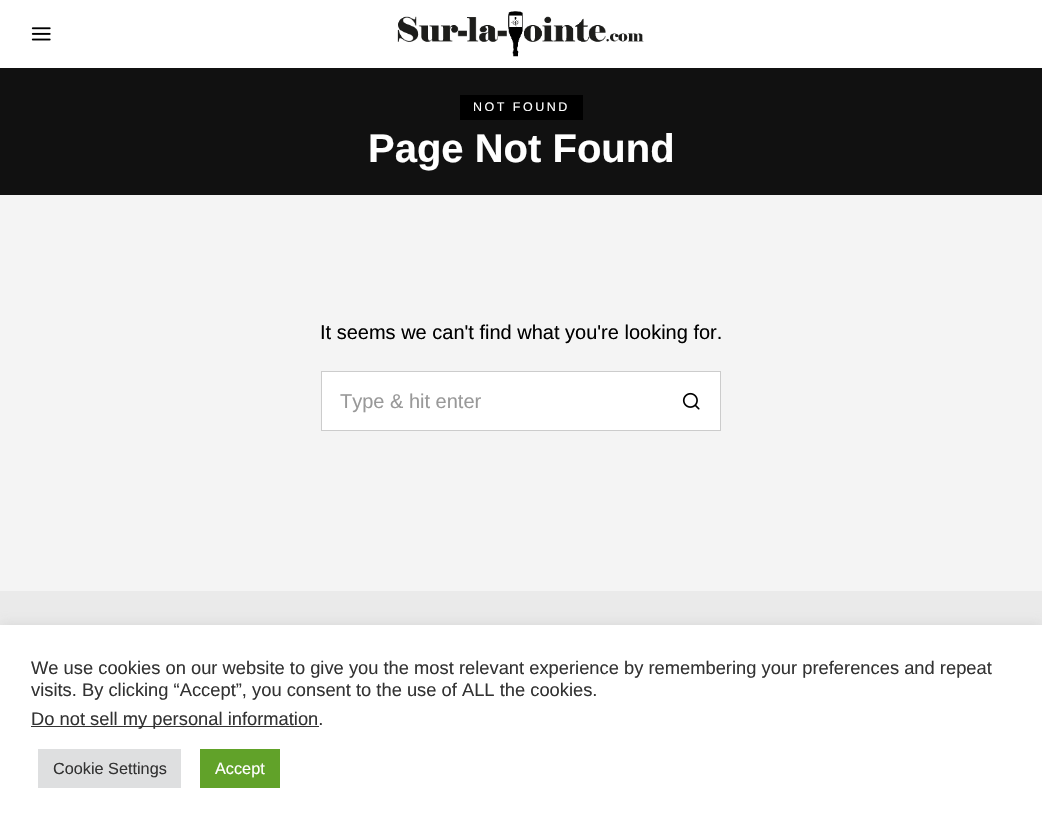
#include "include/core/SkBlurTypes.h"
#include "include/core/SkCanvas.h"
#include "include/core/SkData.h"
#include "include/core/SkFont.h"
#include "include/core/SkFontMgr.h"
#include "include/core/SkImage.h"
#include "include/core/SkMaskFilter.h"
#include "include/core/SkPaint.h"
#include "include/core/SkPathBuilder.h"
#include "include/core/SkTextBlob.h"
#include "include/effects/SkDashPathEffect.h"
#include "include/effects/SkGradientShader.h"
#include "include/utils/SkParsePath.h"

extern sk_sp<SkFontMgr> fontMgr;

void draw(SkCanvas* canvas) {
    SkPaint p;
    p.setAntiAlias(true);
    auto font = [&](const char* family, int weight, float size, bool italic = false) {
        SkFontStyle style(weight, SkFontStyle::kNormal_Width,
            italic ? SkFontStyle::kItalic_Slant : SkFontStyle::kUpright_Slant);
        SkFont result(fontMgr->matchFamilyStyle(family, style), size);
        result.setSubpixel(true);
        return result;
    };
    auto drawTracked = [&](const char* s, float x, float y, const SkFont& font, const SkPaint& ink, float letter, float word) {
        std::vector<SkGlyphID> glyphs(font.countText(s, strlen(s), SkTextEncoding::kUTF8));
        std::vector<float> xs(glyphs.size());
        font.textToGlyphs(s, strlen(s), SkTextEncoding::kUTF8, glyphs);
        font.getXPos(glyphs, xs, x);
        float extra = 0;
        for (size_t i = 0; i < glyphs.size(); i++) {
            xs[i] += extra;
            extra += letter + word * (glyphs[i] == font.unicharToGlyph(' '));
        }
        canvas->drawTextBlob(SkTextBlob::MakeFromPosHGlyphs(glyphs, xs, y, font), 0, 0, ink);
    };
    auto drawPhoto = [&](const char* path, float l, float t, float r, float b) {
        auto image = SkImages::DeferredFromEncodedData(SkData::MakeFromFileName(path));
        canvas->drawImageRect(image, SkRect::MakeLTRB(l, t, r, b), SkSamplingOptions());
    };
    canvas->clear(0xFFF4F4F4);
    p.setColor(0xFFFFFFFF);
    canvas->drawRect(SkRect::MakeLTRB(0, 0, 1042, 68), p);
    drawPhoto("media/1.png", 31, 27, 51, 41);
    drawPhoto("media/2.png", 397, 11, 644, 57);
    p.setColor(0xFF111111);
    canvas->drawRect(SkRect::MakeLTRB(0, 68, 1042, 195), p);
    p.setColor(0xFF000000);
    canvas->drawRect(SkRect::MakeLTRB(460, 95, 583, 120), p);
    auto font1 = font("Liberation Sans", 400, 12.5f);
    p.setColor(0xFFFFFFFF);
    drawTracked("NOT FOUND", 473, 111, font1, p, 2.5f, 0);
    auto font2 = font("Liberation Sans", 700, 40);
    canvas->drawString("Page Not Found", 368, 162, font2, p);
    auto font3 = font("Liberation Sans", 400, 20);
    p.setColor(0xFF000000);
    canvas->drawString("It seems we can't find what you're looking for.", 320, 339, font3, p);
    p.setColor(0xFFFFFFFF);
    canvas->drawRect(SkRect::MakeLTRB(321.5f, 371.5f, 720.5f, 430.5f), p);
    p.setStyle(SkPaint::kStroke_Style);
    p.setStrokeWidth(1);
    p.setColor(0xFFCCCCCC);
    canvas->drawRect(SkRect::MakeLTRB(321.5f, 371.5f, 720.5f, 430.5f), p);
    p.setStyle(SkPaint::kFill_Style);
    p.setColor(0xFF999999);
    canvas->drawString("Type & hit enter", 340, 408, font3, p);
    drawPhoto("media/3.png", 682, 392, 700, 410);
    p.setColor(0xFFEAEAEA);
    canvas->drawRect(SkRect::MakeLTRB(0, 591, 1042, 625), p);
    p.setColor(0x4DACABAB);
    p.setMaskFilter(SkMaskFilter::MakeBlur(kNormal_SkBlurStyle, 6));
    canvas->drawRect(SkRect::MakeLTRB(0, 624, 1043, 824), p);
    p.setMaskFilter(nullptr);
    p.setColor(0xFFFFFFFF);
    canvas->drawRect(SkRect::MakeLTRB(0, 625, 1042, 824), p);
    auto font4 = font("Liberation Sans", 400, 18.33f);
    p.setColor(0xFF333333);
    canvas->drawString("We use cookies on our website to give you the most relevant experience by remembering your preferences and repeat", 31, 674, font4, p);
    canvas->drawString("visits. By clicking “Accept”, you consent to the use of ALL the cookies.", 31, 696, font4, p);
    canvas->drawRect(SkRect::MakeLTRB(31, 726, 319, 727), p);
    canvas->drawString("Do not sell my personal information.", 31, 725, font4, p);
    p.setColor(0xFFDEDFE0);
    canvas->drawRect(SkRect::MakeLTRB(38, 749, 181, 788), p);
    auto font5 = font("Liberation Sans", 400, 16.25f);
    p.setColor(0xFF333333);
    canvas->drawString("Cookie Settings", 53, 774, font5, p);
    p.setColor(0xFF61A229);
    canvas->drawRect(SkRect::MakeLTRB(200, 749, 280, 788), p);
    p.setColor(0xFFFFFFFF);
    canvas->drawString("Accept", 215, 774, font5, p);
}
